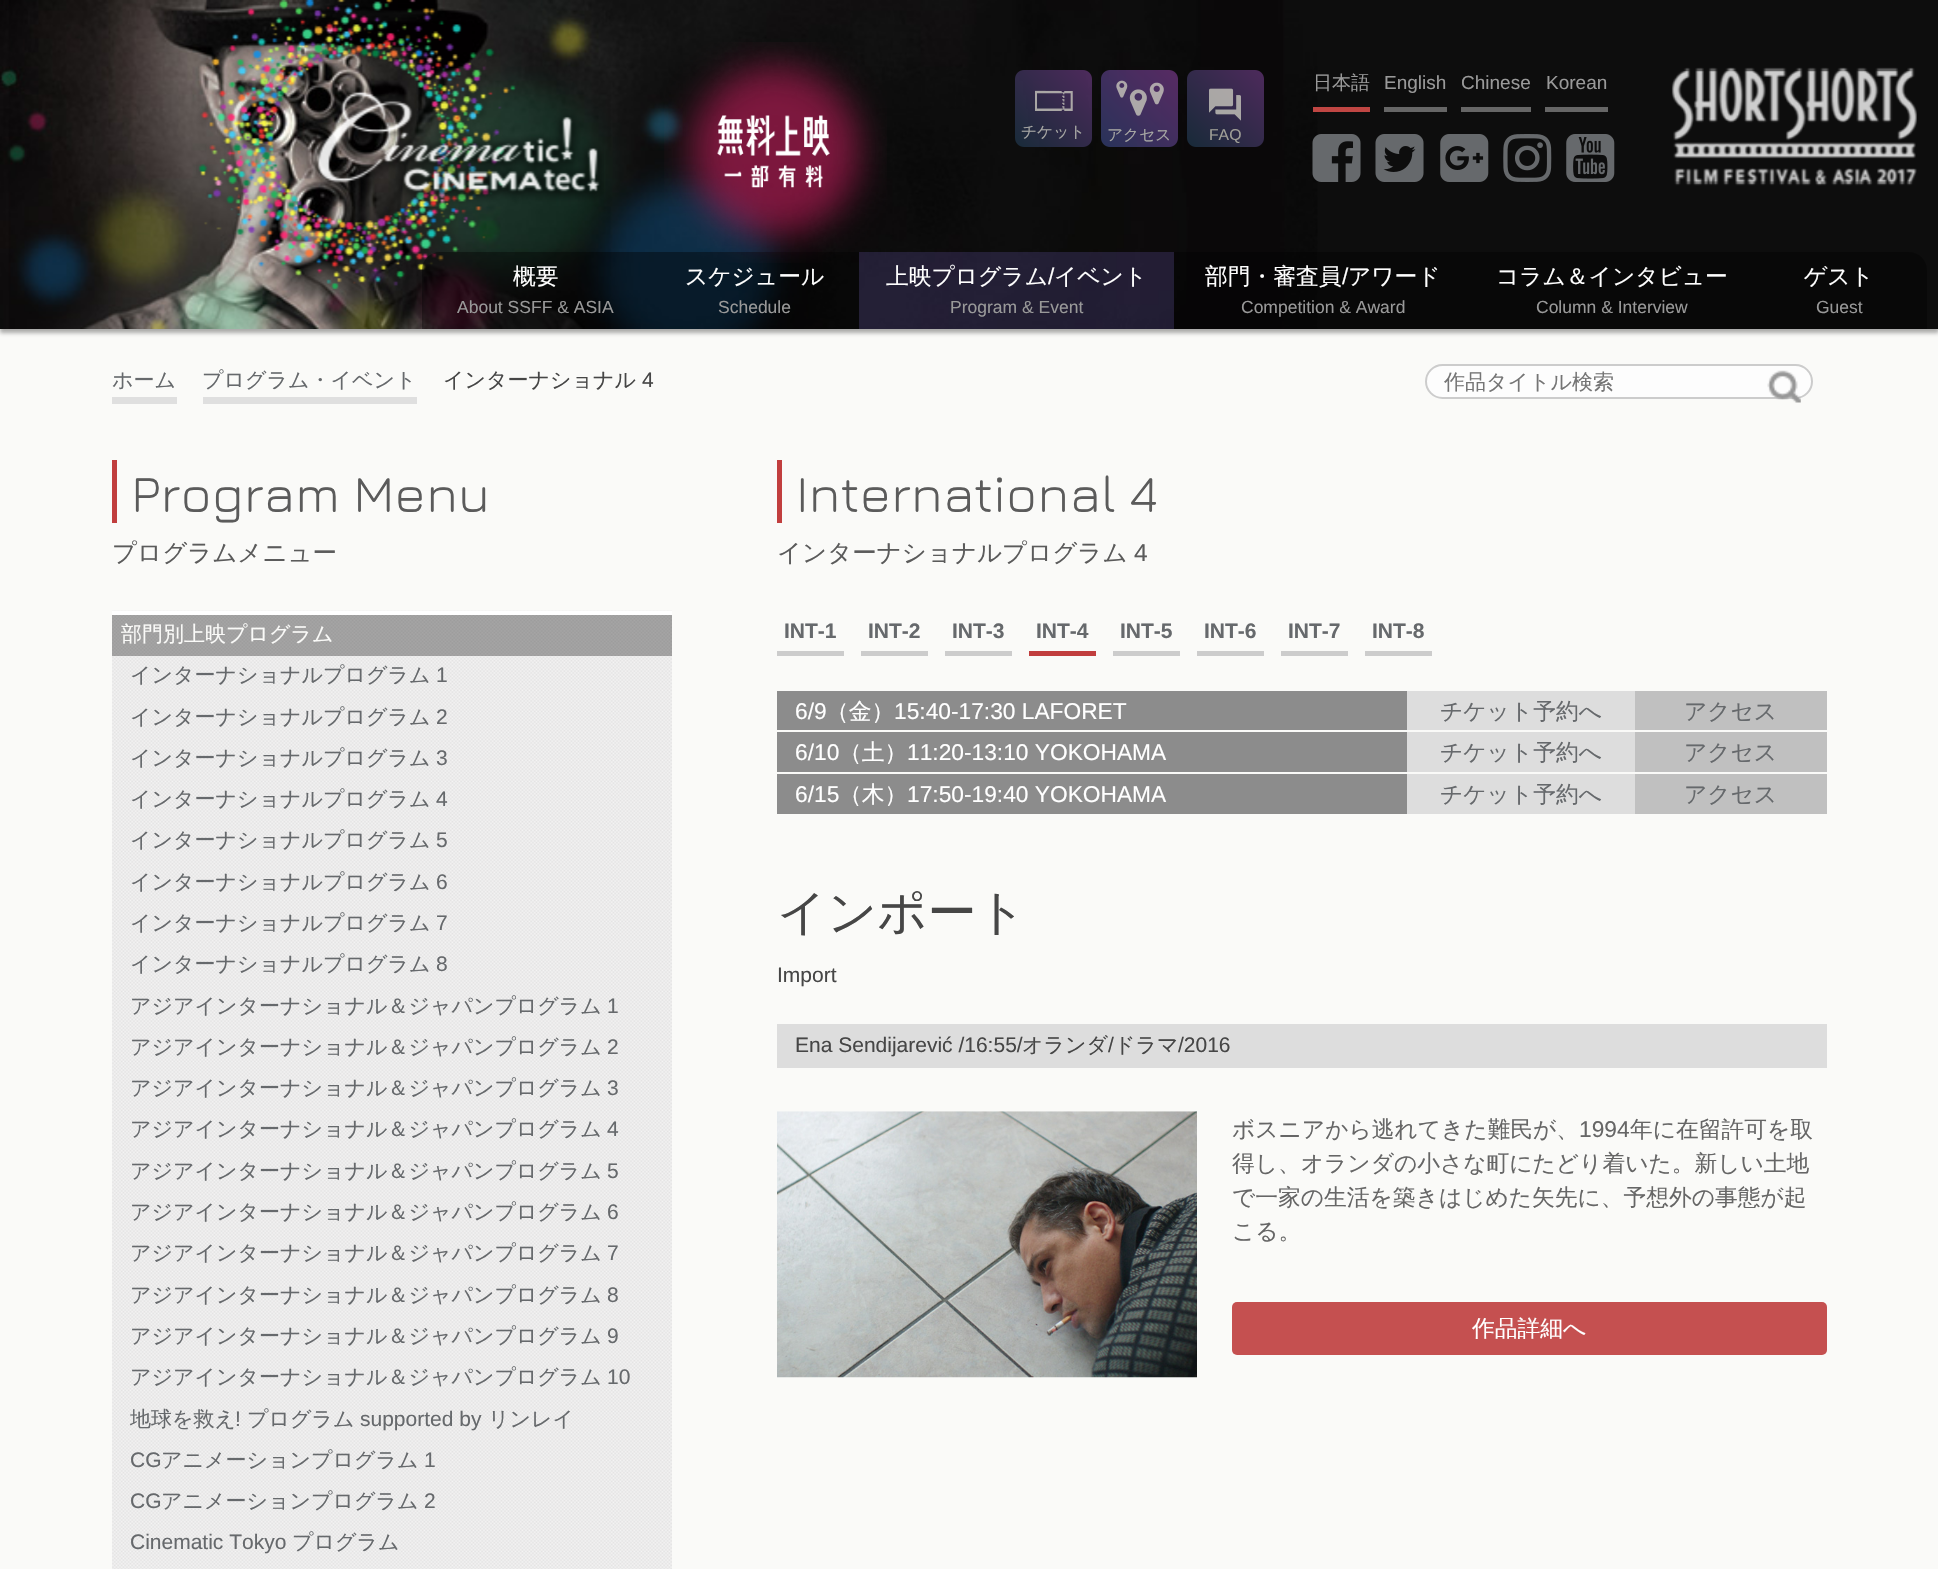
#include "include/core/SkBlurTypes.h"
#include "include/core/SkCanvas.h"
#include "include/core/SkData.h"
#include "include/core/SkFont.h"
#include "include/core/SkFontMgr.h"
#include "include/core/SkImage.h"
#include "include/core/SkMaskFilter.h"
#include "include/core/SkPaint.h"
#include "include/core/SkPathBuilder.h"
#include "include/core/SkTextBlob.h"
#include "include/effects/SkDashPathEffect.h"
#include "include/effects/SkGradientShader.h"
#include "include/utils/SkParsePath.h"

extern sk_sp<SkFontMgr> fontMgr;

void draw(SkCanvas* canvas) {
    SkPaint p;
    p.setAntiAlias(true);
    auto font = [&](const char* family, int weight, float size, bool italic = false) {
        SkFontStyle style(weight, SkFontStyle::kNormal_Width,
            italic ? SkFontStyle::kItalic_Slant : SkFontStyle::kUpright_Slant);
        SkFont result(fontMgr->matchFamilyStyle(family, style), size);
        result.setSubpixel(true);
        return result;
    };
    auto drawPhoto = [&](const char* path, float l, float t, float r, float b) {
        auto image = SkImages::DeferredFromEncodedData(SkData::MakeFromFileName(path));
        canvas->drawImageRect(image, SkRect::MakeLTRB(l, t, r, b), SkSamplingOptions());
    };
    canvas->clear(0xFFFAFAF8);
    p.setColor(0x66333333);
    p.setMaskFilter(SkMaskFilter::MakeBlur(kNormal_SkBlurStyle, 2));
    canvas->drawRect(SkRect::MakeLTRB(0, 4, 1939, 333), p);
    p.setMaskFilter(nullptr);
    p.setColor(0xFF0D0D0D);
    canvas->drawRect(SkRect::MakeLTRB(1317, 0, 1938, 329), p);
    drawPhoto("media/1.png", 0, 0, 1318, 329);
    p.setColor(0x66000000);
    canvas->drawRect(SkRect::MakeLTRB(649, 252, 859, 329), p);
    p.setColor(0x4D554A91);
    canvas->drawRect(SkRect::MakeLTRB(859, 252, 1174, 329), p);
    drawPhoto("media/2.png", 664, 42, 887, 263);
    drawPhoto("media/3.png", 196, 0, 604, 291);
    p.setColor(0xFFC04643);
    canvas->drawRect(SkRect::MakeLTRB(1313, 107, 1370, 112), p);
    auto font1 = font("WenQuanYi Zen Hei", 500, 19);
    p.setColor(0xFF999999);
    canvas->drawString("日本語", 1313, 89, font1, p);
    p.setColor(0xFF666666);
    canvas->drawRect(SkRect::MakeLTRB(1384, 107, 1447, 112), p);
    auto font2 = font("Liberation Sans", 400, 19);
    p.setColor(0xFF999999);
    canvas->drawString("English", 1384, 89, font2, p);
    p.setColor(0xFF666666);
    canvas->drawRect(SkRect::MakeLTRB(1461, 107, 1531, 112), p);
    p.setColor(0xFF999999);
    canvas->drawString("Chinese", 1461, 89, font2, p);
    p.setColor(0xFF666666);
    canvas->drawRect(SkRect::MakeLTRB(1545, 107, 1608, 112), p);
    p.setColor(0xFF999999);
    canvas->drawString("Korean", 1546, 89, font2, p);
    drawPhoto("media/4.png", 1671, 67, 1917, 186);
    drawPhoto("media/5.png", 1035, 90, 1073, 111);
    auto font3 = font("WenQuanYi Zen Hei", 500, 15.75f);
    p.setColor(0xFFA7A7A4);
    canvas->drawString("チケット", 1021, 137, font3, p);
    drawPhoto("media/6.png", 1116, 80, 1164, 116);
    canvas->drawString("アクセス", 1107, 140, font3, p);
    drawPhoto("media/7.png", 1209, 88, 1241, 121);
    auto font4 = font("Liberation Sans", 400, 15.75f);
    p.setColor(0xFFA1A098);
    canvas->drawString("FAQ", 1209, 140, font4, p);
    drawPhoto("media/8.png", 1312, 134, 1361, 182);
    drawPhoto("media/9.png", 1375, 134, 1424, 182);
    drawPhoto("media/10.png", 1440, 134, 1489, 182);
    drawPhoto("media/11.png", 1503, 134, 1552, 182);
    drawPhoto("media/12.png", 1566, 134, 1615, 182);
    p.setColor(0x66000000);
    canvas->drawPath(SkPathBuilder().moveTo(440, 252).lineTo(649, 252).lineTo(649, 329).lineTo(422, 329).lineTo(422, 270).cubicTo(422, 260, 430, 252, 440, 252).close().detach(), p);
    auto font5 = font("WenQuanYi Zen Hei", 500, 22.75f);
    p.setColor(0xFFFFFFFF);
    canvas->drawString("概要", 513, 284, font5, p);
    auto font6 = font("Liberation Sans", 400, 17.5f);
    p.setColor(0xFF999999);
    canvas->drawString("About SSFF & ASIA", 457, 313, font6, p);
    p.setColor(0xFFFFFFFF);
    canvas->drawString("スケジュール", 685, 284, font5, p);
    p.setColor(0xFF999999);
    canvas->drawString("Schedule", 718, 313, font6, p);
    p.setColor(0xFFFFFFFF);
    canvas->drawString("上映プログラム", 886, 284, font5, p);
    auto font7 = font("Liberation Sans", 400, 22.75f);
    canvas->drawString("/", 1048, 284, font7, p);
    canvas->drawString("イベント", 1054, 284, font5, p);
    p.setColor(0xFF999999);
    canvas->drawString("Program & Event", 950, 313, font6, p);
    p.setColor(0x66000000);
    canvas->drawRect(SkRect::MakeLTRB(1174, 252, 1472, 329), p);
    p.setColor(0xFFFFFFFF);
    canvas->drawString("部門・審査員", 1205, 284, font5, p);
    canvas->drawString("/", 1342, 284, font7, p);
    canvas->drawString("アワード", 1348, 284, font5, p);
    p.setColor(0xFF999999);
    canvas->drawString("Competition & Award", 1241, 313, font6, p);
    p.setColor(0xFF080808);
    canvas->drawRect(SkRect::MakeLTRB(1472, 252, 1752, 329), p);
    p.setColor(0xFFFFFFFF);
    canvas->drawString("コラム＆インタビュー", 1496, 284, font5, p);
    p.setColor(0xFF999999);
    canvas->drawString("Column & Interview", 1536, 313, font6, p);
    p.setColor(0xFF080808);
    canvas->drawPath(SkPathBuilder().moveTo(1752, 252).lineTo(1909, 252).cubicTo(1919, 252, 1927, 260, 1927, 270).lineTo(1927, 329).lineTo(1752, 329).close().detach(), p);
    p.setColor(0xFFFFFFFF);
    canvas->drawString("ゲスト", 1804, 284, font5, p);
    p.setColor(0xFF999999);
    canvas->drawString("Guest", 1816, 313, font6, p);
    auto font8 = font("WenQuanYi Zen Hei", 500, 21);
    p.setColor(0xFF66696C);
    canvas->drawString("ホーム", 112, 387, font8, p);
    p.setColor(0xFFDFDFDF);
    canvas->drawRect(SkRect::MakeLTRB(112, 397, 177, 404), p);
    p.setColor(0xFF66696C);
    canvas->drawString("プログラム・イベント", 202, 387, font8, p);
    p.setColor(0xFFDFDFDF);
    canvas->drawRect(SkRect::MakeLTRB(203, 397, 417, 404), p);
    p.setColor(0xFF464646);
    canvas->drawString("インターナショナル", 443, 387, font8, p);
    auto font9 = font("Liberation Sans", 400, 21);
    canvas->drawString("4", 642, 387, font9, p);
    p.setColor(0xFFFDFDFD);
    canvas->drawRoundRect(SkRect::MakeLTRB(1426, 365, 1812, 398), 16.5f, 16.5f, p);
    p.setStyle(SkPaint::kStroke_Style);
    p.setStrokeWidth(2);
    p.setColor(0xFFCCCCCC);
    canvas->drawRoundRect(SkRect::MakeLTRB(1426, 365, 1812, 398), 16.5f, 16.5f, p);
    p.setStyle(SkPaint::kFill_Style);
    p.setColor(0xFF757575);
    canvas->drawString("作品タイトル検索", 1444, 389, font8, p);
    drawPhoto("media/13.png", 1767, 370, 1801, 403);
    p.setColor(0xFFC13E3E);
    canvas->drawRect(SkRect::MakeLTRB(112, 460, 117, 523), p);
    auto font10 = font("Jura", 400, 52.5f);
    p.setColor(0xFF5B5B5B);
    canvas->drawString("Program Menu", 131, 512, font10, p);
    auto font11 = font("WenQuanYi Zen Hei", 500, 24.5f);
    canvas->drawString("プログラムメニュー", 112, 561, font11, p);
    drawPhoto("media/14.png", 112, 610, 672, 1569);
    p.setColor(0x66333333);
    canvas->drawRect(SkRect::MakeLTRB(112, 615, 672, 656), p);
    p.setColor(0xFFFFFFFF);
    canvas->drawRect(SkRect::MakeLTRB(112, 611, 672, 615), p);
    p.setColor(0xFFFAFAF8);
    canvas->drawString("部門別上映プログラム", 121, 641, font8, p);
    p.setColor(0xFF66696C);
    canvas->drawString("インターナショナルプログラム", 130, 682, font8, p);
    canvas->drawString("1", 436, 682, font9, p);
    canvas->drawString("インターナショナルプログラム", 130, 724, font8, p);
    canvas->drawString("2", 436, 724, font9, p);
    canvas->drawString("インターナショナルプログラム", 130, 765, font8, p);
    canvas->drawString("3", 436, 765, font9, p);
    canvas->drawString("インターナショナルプログラム", 130, 806, font8, p);
    canvas->drawString("4", 436, 806, font9, p);
    canvas->drawString("インターナショナルプログラム", 130, 847, font8, p);
    canvas->drawString("5", 436, 847, font9, p);
    canvas->drawString("インターナショナルプログラム", 130, 889, font8, p);
    canvas->drawString("6", 436, 889, font9, p);
    canvas->drawString("インターナショナルプログラム", 130, 930, font8, p);
    canvas->drawString("7", 436, 930, font9, p);
    canvas->drawString("インターナショナルプログラム", 130, 971, font8, p);
    canvas->drawString("8", 436, 971, font9, p);
    canvas->drawString("アジアインターナショナル＆ジャパンプログラム", 130, 1013, font8, p);
    canvas->drawString("1", 607, 1013, font9, p);
    canvas->drawString("アジアインターナショナル＆ジャパンプログラム", 130, 1054, font8, p);
    canvas->drawString("2", 607, 1054, font9, p);
    canvas->drawString("アジアインターナショナル＆ジャパンプログラム", 130, 1095, font8, p);
    canvas->drawString("3", 607, 1095, font9, p);
    canvas->drawString("アジアインターナショナル＆ジャパンプログラム", 130, 1136, font8, p);
    canvas->drawString("4", 607, 1136, font9, p);
    canvas->drawString("アジアインターナショナル＆ジャパンプログラム", 130, 1178, font8, p);
    canvas->drawString("5", 607, 1178, font9, p);
    canvas->drawString("アジアインターナショナル＆ジャパンプログラム", 130, 1219, font8, p);
    canvas->drawString("6", 607, 1219, font9, p);
    canvas->drawString("アジアインターナショナル＆ジャパンプログラム", 130, 1260, font8, p);
    canvas->drawString("7", 607, 1260, font9, p);
    canvas->drawString("アジアインターナショナル＆ジャパンプログラム", 130, 1302, font8, p);
    canvas->drawString("8", 607, 1302, font9, p);
    canvas->drawString("アジアインターナショナル＆ジャパンプログラム", 130, 1343, font8, p);
    canvas->drawString("9", 607, 1343, font9, p);
    canvas->drawString("アジアインターナショナル＆ジャパンプログラム", 130, 1384, font8, p);
    canvas->drawString("10", 607, 1384, font9, p);
    canvas->drawString("地球を救え", 130, 1426, font8, p);
    canvas->drawString("!", 235, 1426, font9, p);
    canvas->drawString("プログラム", 247, 1426, font8, p);
    canvas->drawString("supported by", 360, 1426, font9, p);
    canvas->drawString("リンレイ", 488, 1426, font8, p);
    canvas->drawString("CG", 130, 1467, font9, p);
    canvas->drawString("アニメーションプログラム", 161, 1467, font8, p);
    canvas->drawString("1", 424, 1467, font9, p);
    canvas->drawString("CG", 130, 1508, font9, p);
    canvas->drawString("アニメーションプログラム", 161, 1508, font8, p);
    canvas->drawString("2", 424, 1508, font9, p);
    canvas->drawString("Cinematic Tokyo", 130, 1549, font9, p);
    canvas->drawString("プログラム", 292, 1549, font8, p);
    p.setColor(0xFFC13E3E);
    canvas->drawRect(SkRect::MakeLTRB(777, 460, 782, 523), p);
    p.setColor(0xFF5B5B5B);
    canvas->drawString("International 4", 796, 512, font10, p);
    canvas->drawString("インターナショナルプログラム", 777, 561, font11, p);
    auto font12 = font("Liberation Sans", 400, 24.5f);
    canvas->drawString("4", 1134, 561, font12, p);
    p.setColor(0xFFCCCCCC);
    canvas->drawRect(SkRect::MakeLTRB(777, 651, 844, 656), p);
    auto font13 = font("Liberation Sans", 700, 21);
    p.setColor(0xFF66696C);
    canvas->drawString("INT-1", 784, 638, font13, p);
    p.setColor(0xFFCCCCCC);
    canvas->drawRect(SkRect::MakeLTRB(861, 651, 928, 656), p);
    p.setColor(0xFF66696C);
    canvas->drawString("INT-2", 868, 638, font13, p);
    p.setColor(0xFFCCCCCC);
    canvas->drawRect(SkRect::MakeLTRB(945, 651, 1012, 656), p);
    p.setColor(0xFF66696C);
    canvas->drawString("INT-3", 952, 638, font13, p);
    p.setColor(0xFFC13E3E);
    canvas->drawRect(SkRect::MakeLTRB(1029, 651, 1096, 656), p);
    p.setColor(0xFF66696C);
    canvas->drawString("INT-4", 1036, 638, font13, p);
    p.setColor(0xFFCCCCCC);
    canvas->drawRect(SkRect::MakeLTRB(1113, 651, 1180, 656), p);
    p.setColor(0xFF66696C);
    canvas->drawString("INT-5", 1120, 638, font13, p);
    p.setColor(0xFFCCCCCC);
    canvas->drawRect(SkRect::MakeLTRB(1197, 651, 1264, 656), p);
    p.setColor(0xFF66696C);
    canvas->drawString("INT-6", 1204, 638, font13, p);
    p.setColor(0xFFCCCCCC);
    canvas->drawRect(SkRect::MakeLTRB(1281, 651, 1348, 656), p);
    p.setColor(0xFF66696C);
    canvas->drawString("INT-7", 1288, 638, font13, p);
    p.setColor(0xFFCCCCCC);
    canvas->drawRect(SkRect::MakeLTRB(1365, 651, 1432, 656), p);
    p.setColor(0xFF66696C);
    canvas->drawString("INT-8", 1372, 638, font13, p);
    p.setColor(0xFF8C8C8C);
    canvas->drawRect(SkRect::MakeLTRB(777, 691, 1407, 730), p);
    p.setColor(0xFFFFFFFF);
    canvas->drawString("6/9", 795, 719, font7, p);
    canvas->drawString("（金）", 826, 719, font5, p);
    canvas->drawString("15:40-17:30 LAFORET", 894, 719, font7, p);
    p.setColor(0xFFDDDDDD);
    canvas->drawRect(SkRect::MakeLTRB(1407, 691, 1635, 730), p);
    p.setColor(0xFF66696C);
    canvas->drawString("チケット予約へ", 1440, 719, font5, p);
    p.setColor(0xFFC0C0C0);
    canvas->drawRect(SkRect::MakeLTRB(1635, 691, 1827, 730), p);
    p.setColor(0xFF66696C);
    canvas->drawString("アクセス", 1684, 719, font5, p);
    p.setColor(0xFF8C8C8C);
    canvas->drawRect(SkRect::MakeLTRB(777, 732, 1407, 772), p);
    p.setColor(0xFFFFFFFF);
    canvas->drawString("6/10", 795, 760, font7, p);
    canvas->drawString("（土）", 839, 760, font5, p);
    canvas->drawString("11:20-13:10 YOKOHAMA", 907, 760, font7, p);
    p.setColor(0xFFDDDDDD);
    canvas->drawRect(SkRect::MakeLTRB(1407, 732, 1635, 772), p);
    p.setColor(0xFF66696C);
    canvas->drawString("チケット予約へ", 1440, 760, font5, p);
    p.setColor(0xFFC0C0C0);
    canvas->drawRect(SkRect::MakeLTRB(1635, 732, 1827, 772), p);
    p.setColor(0xFF66696C);
    canvas->drawString("アクセス", 1684, 760, font5, p);
    p.setColor(0xFF8C8C8C);
    canvas->drawRect(SkRect::MakeLTRB(777, 774, 1407, 814), p);
    p.setColor(0xFFFFFFFF);
    canvas->drawString("6/15", 795, 802, font7, p);
    canvas->drawString("（木）", 839, 802, font5, p);
    canvas->drawString("17:50-19:40 YOKOHAMA", 907, 802, font7, p);
    p.setColor(0xFFDDDDDD);
    canvas->drawRect(SkRect::MakeLTRB(1407, 774, 1635, 814), p);
    p.setColor(0xFF66696C);
    canvas->drawString("チケット予約へ", 1440, 802, font5, p);
    p.setColor(0xFFC0C0C0);
    canvas->drawRect(SkRect::MakeLTRB(1635, 774, 1827, 814), p);
    p.setColor(0xFF66696C);
    canvas->drawString("アクセス", 1684, 802, font5, p);
    auto font14 = font("WenQuanYi Zen Hei", 500, 49);
    p.setColor(0xFF464646);
    canvas->drawString("インポート", 777, 929, font14, p);
    canvas->drawString("Import", 777, 982, font9, p);
    p.setColor(0xFFDDDDDD);
    canvas->drawRect(SkRect::MakeLTRB(777, 1024, 1827, 1068), p);
    p.setColor(0xFF464646);
    canvas->drawString("Ena Sendijarević /16:55/", 795, 1052, font9, p);
    canvas->drawString("オランダ", 1022, 1052, font8, p);
    canvas->drawString("/", 1108, 1052, font9, p);
    canvas->drawString("ドラマ", 1114, 1052, font8, p);
    canvas->drawString("/2016", 1178, 1052, font9, p);
    drawPhoto("media/15.png", 777, 1111, 1197, 1378);
    p.setColor(0xFF666666);
    canvas->drawString("ボスニアから逃れてきた難民が、", 1232, 1137, font5, p);
    canvas->drawString("1994", 1579, 1137, font7, p);
    {
        const struct { const char* s; float x, y; } items[] = {
            {"年に在留許可を取", 1630, 1137},
            {"得し、オランダの小さな町にたどり着いた。新しい土地", 1232, 1171},
            {"で一家の生活を築きはじめた矢先に、予想外の事態が起", 1232, 1205},
            {"こる。", 1232, 1239},
        };
        for (auto [s, x, y] : items) {
            canvas->drawString(s, x, y, font5, p);
        }
    }
    p.setColor(0xFFC55050);
    canvas->drawRoundRect(SkRect::MakeLTRB(1232, 1302, 1827, 1355), 5, 5, p);
    p.setColor(0xFFFFFFFF);
    canvas->drawString("作品詳細へ", 1472, 1336, font5, p);
}
